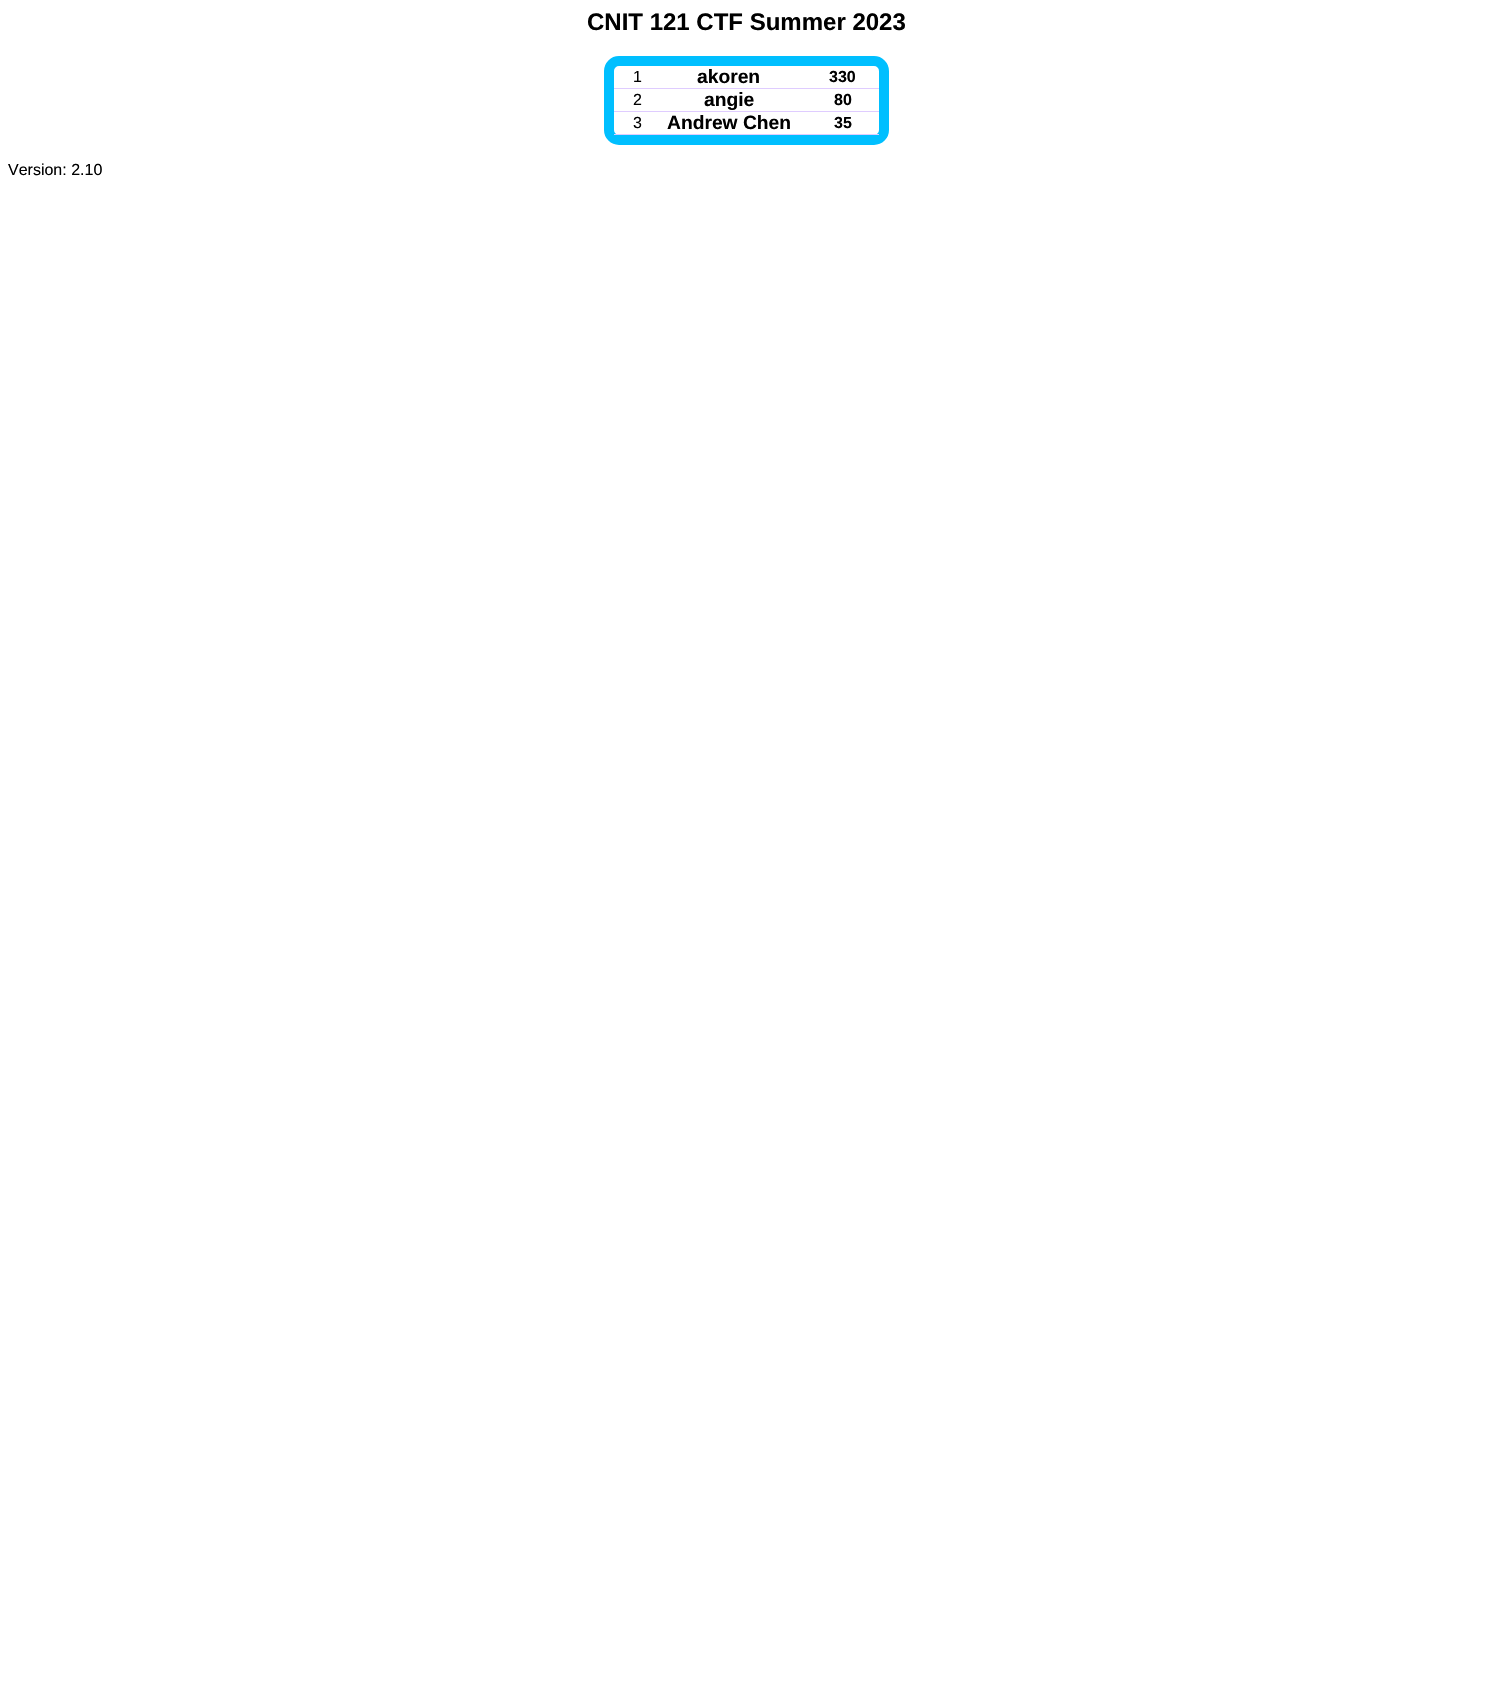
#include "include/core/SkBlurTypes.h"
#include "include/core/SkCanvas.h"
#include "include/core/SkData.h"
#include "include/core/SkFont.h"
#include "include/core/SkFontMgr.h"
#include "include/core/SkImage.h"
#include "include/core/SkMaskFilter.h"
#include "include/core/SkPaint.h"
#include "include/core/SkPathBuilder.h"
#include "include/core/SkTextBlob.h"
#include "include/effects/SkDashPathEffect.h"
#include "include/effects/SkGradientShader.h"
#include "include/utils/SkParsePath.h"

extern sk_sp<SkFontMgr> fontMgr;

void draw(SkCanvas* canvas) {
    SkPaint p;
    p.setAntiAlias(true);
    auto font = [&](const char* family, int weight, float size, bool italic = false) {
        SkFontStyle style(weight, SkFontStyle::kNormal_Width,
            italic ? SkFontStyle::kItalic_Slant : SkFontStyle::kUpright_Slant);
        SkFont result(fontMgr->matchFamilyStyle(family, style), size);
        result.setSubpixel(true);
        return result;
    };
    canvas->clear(0xFFFFFFFF);
    auto font1 = font("Liberation Sans", 700, 24);
    p.setColor(0xFF000000);
    canvas->drawString("CNIT 121 CTF Summer 2023", 587, 30, font1, p);
    p.setStyle(SkPaint::kStroke_Style);
    p.setStrokeWidth(10);
    p.setColor(0xFF00BFFF);
    canvas->drawRoundRect(SkRect::MakeLTRB(609, 61, 884, 140), 10, 10, p);
    p.setStyle(SkPaint::kFill_Style);
    p.setColor(0xFFDFCCFF);
    canvas->drawRect(SkRect::MakeLTRB(614, 88, 879, 89), p);
    auto font2 = font("Liberation Sans", 400, 16);
    p.setColor(0xFF000000);
    canvas->drawString("1", 633, 82, font2, p);
    auto font3 = font("Liberation Sans", 700, 19.25f);
    canvas->drawString("akoren", 697, 83, font3, p);
    auto font4 = font("Liberation Sans", 700, 16);
    canvas->drawString("330", 829, 82, font4, p);
    p.setColor(0xFFDFCCFF);
    canvas->drawRect(SkRect::MakeLTRB(614, 111, 879, 112), p);
    p.setColor(0xFF000000);
    canvas->drawString("2", 633, 105, font2, p);
    canvas->drawString("angie", 704, 106, font3, p);
    canvas->drawString("80", 834, 105, font4, p);
    p.setColor(0xFFDFCCFF);
    canvas->drawRect(SkRect::MakeLTRB(614, 134, 879, 135), p);
    p.setColor(0xFF000000);
    canvas->drawString("3", 633, 128, font2, p);
    canvas->drawString("Andrew Chen", 667, 129, font3, p);
    canvas->drawString("35", 834, 128, font4, p);
    canvas->drawString("Version: 2.10", 8, 175, font2, p);
}
